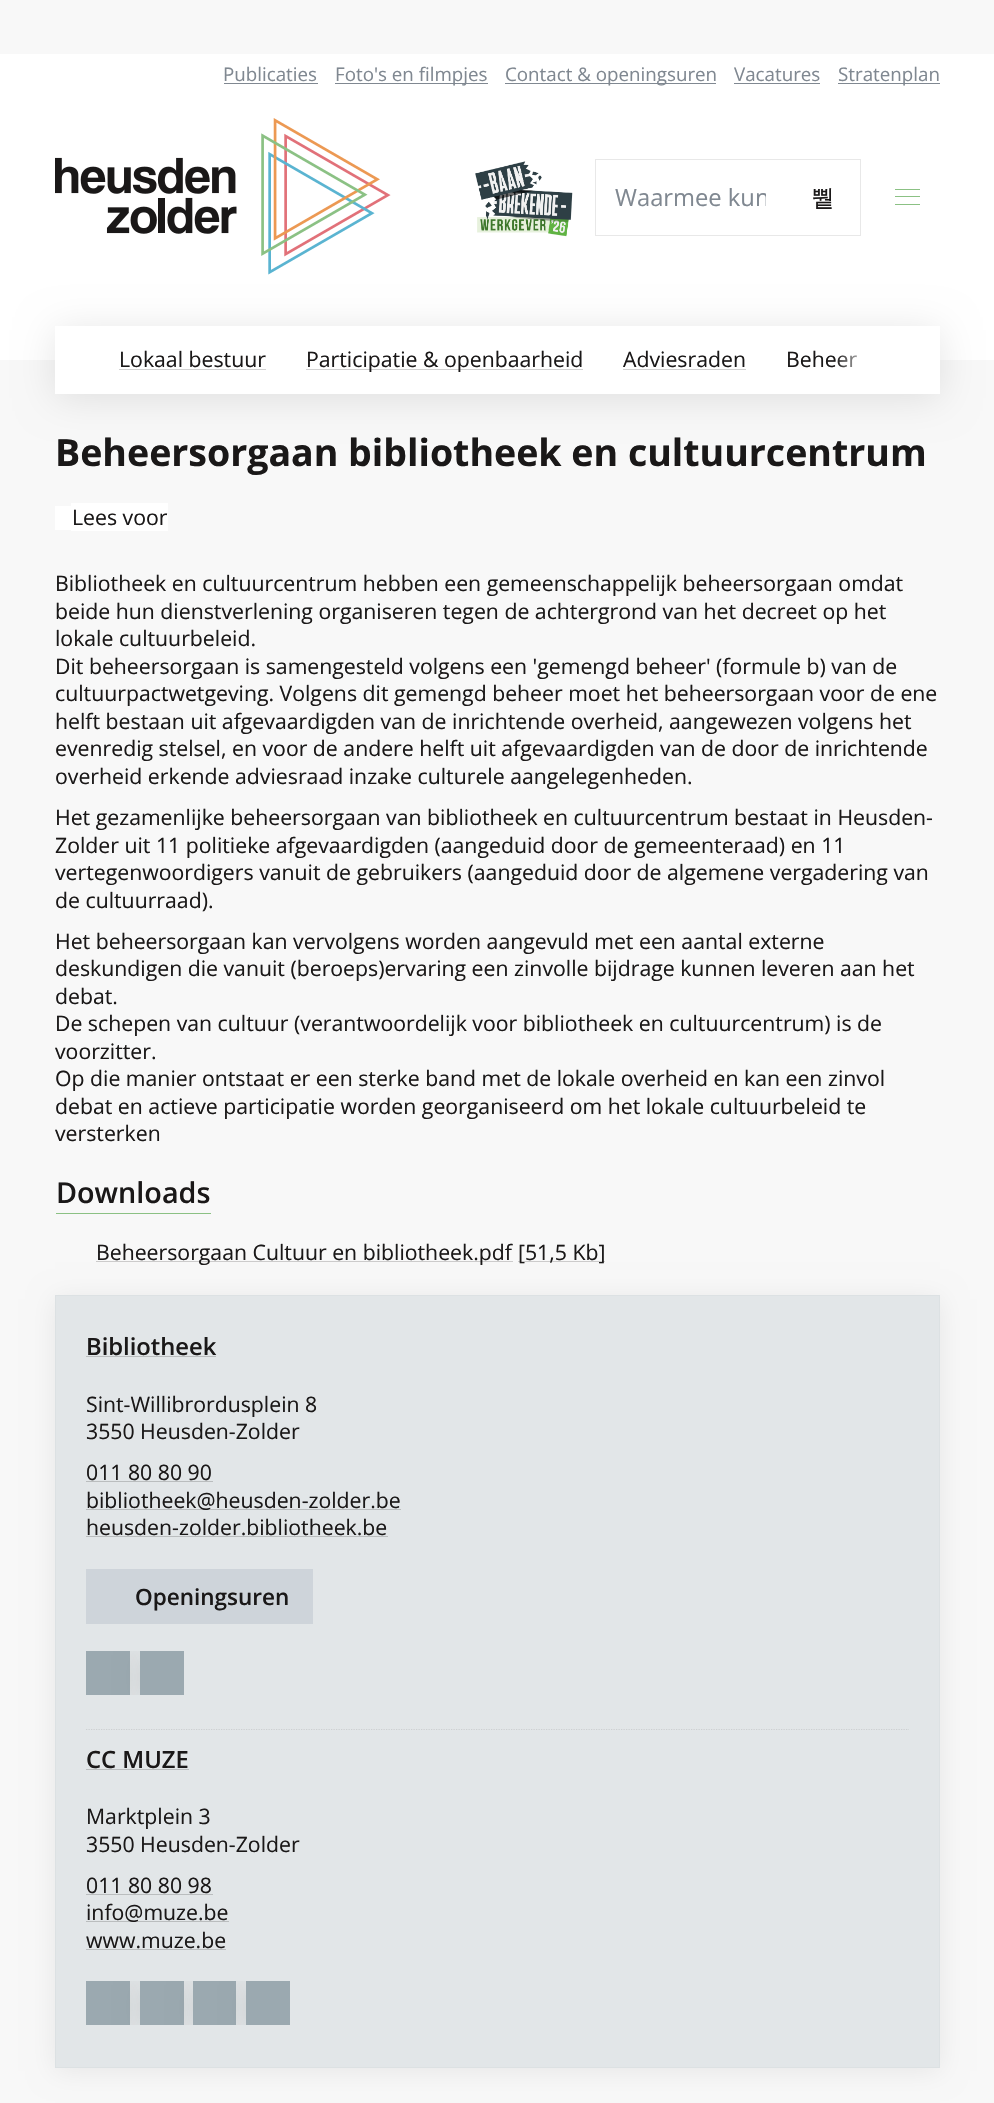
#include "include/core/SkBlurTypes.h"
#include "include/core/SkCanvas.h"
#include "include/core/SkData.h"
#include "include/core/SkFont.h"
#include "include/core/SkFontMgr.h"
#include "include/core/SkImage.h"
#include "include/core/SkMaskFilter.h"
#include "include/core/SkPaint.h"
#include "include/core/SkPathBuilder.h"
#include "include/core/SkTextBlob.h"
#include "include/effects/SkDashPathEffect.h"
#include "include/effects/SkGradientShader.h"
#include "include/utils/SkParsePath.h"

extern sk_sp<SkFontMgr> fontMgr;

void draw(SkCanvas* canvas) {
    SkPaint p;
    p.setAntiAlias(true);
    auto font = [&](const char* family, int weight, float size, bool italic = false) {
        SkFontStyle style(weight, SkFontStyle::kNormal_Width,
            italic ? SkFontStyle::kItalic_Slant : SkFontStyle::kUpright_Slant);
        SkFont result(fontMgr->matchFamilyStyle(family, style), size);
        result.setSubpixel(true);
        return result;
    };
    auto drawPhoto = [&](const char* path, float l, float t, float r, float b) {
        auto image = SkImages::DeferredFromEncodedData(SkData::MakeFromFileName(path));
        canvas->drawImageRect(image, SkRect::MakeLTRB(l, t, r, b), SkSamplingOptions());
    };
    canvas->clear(0xFFF8F8F8);
    p.setColor(0xFFFFFFFF);
    canvas->drawRect(SkRect::MakeLTRB(0, 54, 994, 360), p);
    drawPhoto("media/1.png", 55, 118, 391, 275);
    auto font1 = font("Open Sans", 400, 18.75f);
    p.setColor(0xFF808891);
    canvas->drawString("Publicaties", 223, 81, font1, p);
    canvas->drawRect(SkRect::MakeLTRB(224, 83, 318, 84), p);
    canvas->drawRect(SkRect::MakeLTRB(335, 83, 488, 84), p);
    canvas->drawString("Foto's en filmpjes", 335, 81, font1, p);
    canvas->drawRect(SkRect::MakeLTRB(505, 83, 716, 84), p);
    canvas->drawString("Contact & openingsuren", 505, 81, font1, p);
    canvas->drawString("Vacatures", 734, 81, font1, p);
    canvas->drawRect(SkRect::MakeLTRB(734, 83, 820, 84), p);
    canvas->drawRect(SkRect::MakeLTRB(838, 83, 940, 84), p);
    canvas->drawString("Stratenplan", 838, 81, font1, p);
    drawPhoto("media/2.png", 475, 161, 573, 237);
    p.setStyle(SkPaint::kStroke_Style);
    p.setStrokeWidth(1);
    p.setColor(0xFFE8E8E8);
    canvas->drawRect(SkRect::MakeLTRB(595.5f, 159.5f, 860.5f, 235.5f), p);
    canvas->save();
    canvas->clipRect(SkRect::MakeLTRB(615, 181, 766, 214));
    auto font2 = font("Open Sans", 400, 23.75f);
    p.setStyle(SkPaint::kFill_Style);
    p.setColor(0xFF808891);
    canvas->drawString("Waarmee kun", 615, 206, font2, p);
    canvas->restore();
    auto font3 = font("WenQuanYi Zen Hei", 500, 23.75f);
    p.setColor(0xFF1A1818);
    canvas->drawString("쀁", 811, 206, font3, p);
    {
        const struct { float l, t, r, b; SkColor color; } items[] = {
            {895, 196, 920, 197, 0xFF8BC184},
            {895, 189, 920, 190, 0xFF8BC184},
            {895, 204, 920, 205, 0xFF8BC184},
        };
        for (auto [l, t, r, b, color] : items) {
            p.setColor(color);
            canvas->drawRect(SkRect::MakeLTRB(l, t, r, b), p);
        }
    }
    p.setColor(0x1A000000);
    p.setMaskFilter(SkMaskFilter::MakeBlur(kNormal_SkBlurStyle, 19));
    canvas->drawRect(SkRect::MakeLTRB(55, 330, 940, 398), p);
    p.setMaskFilter(nullptr);
    p.setColor(0xFFFFFFFF);
    canvas->drawRect(SkRect::MakeLTRB(55, 326, 940, 394), p);
    auto font4 = font("Open Sans", 400, 21.25f);
    p.setColor(0xFF1A1818);
    canvas->drawString("Lokaal bestuur", 119, 367, font4, p);
    p.setColor(0xFFD1D1D1);
    canvas->drawRect(SkRect::MakeLTRB(119, 369, 266, 370), p);
    canvas->drawRect(SkRect::MakeLTRB(306, 369, 583, 370), p);
    p.setColor(0xFF1A1818);
    canvas->drawString("Participatie & openbaarheid", 306, 367, font4, p);
    canvas->drawString("Adviesraden", 623, 367, font4, p);
    p.setColor(0xFFD1D1D1);
    canvas->drawRect(SkRect::MakeLTRB(623, 369, 746, 370), p);
    p.setColor(0xFF1A1818);
    canvas->drawString("Beheer", 786, 367, font4, p);
    {
        const SkColor colors[] = {0x00FFFFFF, 0xFFFFFFFF};
        const float stops[] = {0, 1};
        const SkPoint ends[] = {{835, 360}, {873, 360}};
        p.setShader(SkGradientShader::MakeLinear(ends, colors, stops, 2, SkTileMode::kClamp));
        p.setAlpha(255);
    }
    canvas->drawRect(SkRect::MakeLTRB(837, 355, 857, 368), p);
    auto font5 = font("Open Sans", 700, 37.5f);
    p.setShader(nullptr);
    p.setColor(0xFF1A1818);
    canvas->drawString("Beheersorgaan bibliotheek en cultuurcentrum", 55, 466, font5, p);
    p.setColor(0xFFFFFFFF);
    canvas->drawRect(SkRect::MakeLTRB(71, 503, 168, 531), p);
    p.setColor(0xFF1A1818);
    canvas->drawString("Lees voor", 72, 525, font4, p);
    p.setColor(0xFFFFFFFF);
    canvas->drawRect(SkRect::MakeLTRB(55, 506, 71, 530), p);
    p.setColor(0xFF1A1818);
    {
        const struct { const char* s; float x, y; } items[] = {
            {"Bibliotheek en cultuurcentrum hebben een gemeenschappelijk beheersorgaan omdat", 55, 591},
            {"beide hun dienstverlening organiseren tegen de achtergrond van het decreet op het", 55, 619},
            {"lokale cultuurbeleid.", 55, 646},
            {"Dit beheersorgaan is samengesteld volgens een 'gemengd beheer' (formule b) van de", 55, 674},
            {"cultuurpactwetgeving. Volgens dit gemengd beheer moet het beheersorgaan voor de ene", 55, 701},
            {"helft bestaan uit afgevaardigden van de inrichtende overheid, aangewezen volgens het", 55, 729},
            {"evenredig stelsel, en voor de andere helft uit afgevaardigden van de door de inrichtende", 55, 756},
            {"overheid erkende adviesraad inzake culturele aangelegenheden.", 55, 784},
            {"Het gezamenlijke beheersorgaan van bibliotheek en cultuurcentrum bestaat in Heusden-", 55, 825},
            {"Zolder uit 11 politieke afgevaardigden (aangeduid door de gemeenteraad) en 11", 55, 853},
            {"vertegenwoordigers vanuit de gebruikers (aangeduid door de algemene vergadering van", 55, 880},
            {"de cultuurraad).", 55, 908},
            {"Het beheersorgaan kan vervolgens worden aangevuld met een aantal externe", 55, 949},
            {"deskundigen die vanuit (beroeps)ervaring een zinvolle bijdrage kunnen leveren aan het", 55, 976},
            {"debat.", 55, 1004},
            {"De schepen van cultuur (verantwoordelijk voor bibliotheek en cultuurcentrum) is de", 55, 1031},
            {"voorzitter.", 55, 1059},
            {"Op die manier ontstaat er een sterke band met de lokale overheid en kan een zinvol", 55, 1086},
            {"debat en actieve participatie worden georganiseerd om het lokale cultuurbeleid te", 55, 1114},
            {"versterken", 55, 1141},
        };
        for (auto [s, x, y] : items) {
            canvas->drawString(s, x, y, font4, p);
        }
    }
    p.setColor(0xFF8BC184);
    canvas->drawRect(SkRect::MakeLTRB(56, 1213, 211, 1214), p);
    auto font6 = font("Open Sans", 600, 28.75f);
    p.setColor(0xFF1A1818);
    canvas->drawString("Downloads", 56, 1203, font6, p);
    p.setColor(0x12000000);
    p.setMaskFilter(SkMaskFilter::MakeBlur(kNormal_SkBlurStyle, 12.5f));
    canvas->drawRect(SkRect::MakeLTRB(55, 1299, 940, 2071), p);
    p.setMaskFilter(nullptr);
    p.setColor(0xFFCCCBCB);
    canvas->drawRect(SkRect::MakeLTRB(96, 1261, 513, 1262), p);
    p.setColor(0xFF1A1818);
    canvas->drawString("Beheersorgaan Cultuur en bibliotheek.pdf", 96, 1260, font4, p);
    p.setColor(0xFFCCCBCB);
    canvas->drawRect(SkRect::MakeLTRB(518, 1261, 605, 1262), p);
    p.setColor(0xFF1A1818);
    canvas->drawString("[51,5 Kb]", 518, 1260, font4, p);
    p.setColor(0xFFE2E6E8);
    canvas->drawRect(SkRect::MakeLTRB(55.5f, 1295.5f, 939.5f, 2067.5f), p);
    p.setStyle(SkPaint::kStroke_Style);
    p.setColor(0xFFDCE1E3);
    canvas->drawRect(SkRect::MakeLTRB(55.5f, 1295.5f, 939.5f, 2067.5f), p);
    auto font7 = font("Open Sans", 600, 23.75f);
    p.setStyle(SkPaint::kFill_Style);
    p.setColor(0xFF1A1818);
    canvas->drawString("Bibliotheek", 86, 1355, font7, p);
    p.setColor(0xFFBABDBE);
    canvas->drawRect(SkRect::MakeLTRB(86, 1356, 216, 1357), p);
    p.setColor(0xFF1A1818);
    {
        const struct { const char* s; float x, y; } items[] = {
            {"Sint-Willibrordusplein 8", 86, 1412},
            {"3550 Heusden-Zolder", 86, 1439},
            {"011 80 80 90", 86, 1480},
        };
        for (auto [s, x, y] : items) {
            canvas->drawString(s, x, y, font4, p);
        }
    }
    p.setColor(0xFFBABDBE);
    canvas->drawRect(SkRect::MakeLTRB(86, 1481, 213, 1482), p);
    canvas->drawRect(SkRect::MakeLTRB(86, 1509, 401, 1510), p);
    p.setColor(0xFF1A1818);
    canvas->drawString("bibliotheek@heusden-zolder.be", 86, 1508, font4, p);
    canvas->drawString("heusden-zolder.bibliotheek.be", 86, 1535, font4, p);
    p.setColor(0xFFBABDBE);
    canvas->drawRect(SkRect::MakeLTRB(86, 1536, 388, 1537), p);
    p.setColor(0xFFCED4DA);
    canvas->drawRect(SkRect::MakeLTRB(86, 1569, 313, 1624), p);
    auto font8 = font("Open Sans", 600, 22.5f);
    p.setColor(0xFF1A1818);
    canvas->drawString("Openingsuren", 135, 1605, font8, p);
    canvas->save();
    canvas->clipRect(SkRect::MakeLTRB(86, 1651, 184, 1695));
    p.setColor(0x12000000);
    p.setMaskFilter(SkMaskFilter::MakeBlur(kNormal_SkBlurStyle, 12.5f));
    canvas->drawRect(SkRect::MakeLTRB(86, 1655, 130, 1699), p);
    p.setMaskFilter(nullptr);
    canvas->restore();
    p.setColor(0xFF9BA9B0);
    canvas->drawRect(SkRect::MakeLTRB(86, 1651, 130, 1695), p);
    canvas->save();
    canvas->clipRect(SkRect::MakeLTRB(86, 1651, 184, 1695));
    p.setColor(0x12000000);
    p.setMaskFilter(SkMaskFilter::MakeBlur(kNormal_SkBlurStyle, 12.5f));
    canvas->drawRect(SkRect::MakeLTRB(140, 1655, 184, 1699), p);
    p.setMaskFilter(nullptr);
    canvas->restore();
    p.setColor(0xFF9BA9B0);
    canvas->drawRect(SkRect::MakeLTRB(140, 1651, 184, 1695), p);
    p.setStyle(SkPaint::kStroke_Style);
    p.setStrokeWidth(1.2f);
    p.setColor(0xFFCCCFD1);
    p.setPathEffect(SkDashPathEffect::Make({{1.25f, 1.25f}}, 0));
    canvas->drawPath(SkPathBuilder().moveTo(86, 1729.5f).lineTo(909, 1729.5f).detach(), p);
    p.setPathEffect(nullptr);
    p.setStyle(SkPaint::kFill_Style);
    p.setColor(0xFF1A1818);
    canvas->drawString("CC MUZE", 86, 1768, font7, p);
    p.setColor(0xFFBABDBE);
    canvas->drawRect(SkRect::MakeLTRB(86, 1769, 189, 1770), p);
    p.setColor(0xFF1A1818);
    {
        const struct { const char* s; float x, y; } items[] = {
            {"Marktplein 3", 86, 1824},
            {"3550 Heusden-Zolder", 86, 1852},
            {"011 80 80 98", 86, 1893},
        };
        for (auto [s, x, y] : items) {
            canvas->drawString(s, x, y, font4, p);
        }
    }
    p.setColor(0xFFBABDBE);
    canvas->drawRect(SkRect::MakeLTRB(86, 1894, 213, 1895), p);
    canvas->drawRect(SkRect::MakeLTRB(86, 1921, 229, 1922), p);
    p.setColor(0xFF1A1818);
    canvas->drawString("info@muze.be", 86, 1920, font4, p);
    canvas->drawString("www.muze.be", 86, 1948, font4, p);
    p.setColor(0xFFBABDBE);
    canvas->drawRect(SkRect::MakeLTRB(86, 1949, 226, 1950), p);
    canvas->save();
    canvas->clipRect(SkRect::MakeLTRB(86, 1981, 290, 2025));
    p.setColor(0x12000000);
    p.setMaskFilter(SkMaskFilter::MakeBlur(kNormal_SkBlurStyle, 12.5f));
    canvas->drawRect(SkRect::MakeLTRB(86, 1985, 130, 2029), p);
    p.setMaskFilter(nullptr);
    canvas->restore();
    p.setColor(0xFF9BA9B0);
    canvas->drawRect(SkRect::MakeLTRB(86, 1981, 130, 2025), p);
    canvas->save();
    canvas->clipRect(SkRect::MakeLTRB(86, 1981, 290, 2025));
    p.setColor(0x12000000);
    p.setMaskFilter(SkMaskFilter::MakeBlur(kNormal_SkBlurStyle, 12.5f));
    canvas->drawRect(SkRect::MakeLTRB(140, 1985, 184, 2029), p);
    p.setMaskFilter(nullptr);
    canvas->restore();
    p.setColor(0xFF9BA9B0);
    canvas->drawRect(SkRect::MakeLTRB(140, 1981, 184, 2025), p);
    canvas->save();
    canvas->clipRect(SkRect::MakeLTRB(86, 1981, 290, 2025));
    p.setColor(0x12000000);
    p.setMaskFilter(SkMaskFilter::MakeBlur(kNormal_SkBlurStyle, 12.5f));
    canvas->drawRect(SkRect::MakeLTRB(193, 1985, 236, 2029), p);
    p.setMaskFilter(nullptr);
    canvas->restore();
    p.setColor(0xFF9BA9B0);
    canvas->drawRect(SkRect::MakeLTRB(193, 1981, 236, 2025), p);
    canvas->save();
    canvas->clipRect(SkRect::MakeLTRB(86, 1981, 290, 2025));
    p.setColor(0x12000000);
    p.setMaskFilter(SkMaskFilter::MakeBlur(kNormal_SkBlurStyle, 12.5f));
    canvas->drawRect(SkRect::MakeLTRB(246, 1985, 290, 2029), p);
    p.setMaskFilter(nullptr);
    canvas->restore();
    p.setColor(0xFF9BA9B0);
    canvas->drawRect(SkRect::MakeLTRB(246, 1981, 290, 2025), p);
}
